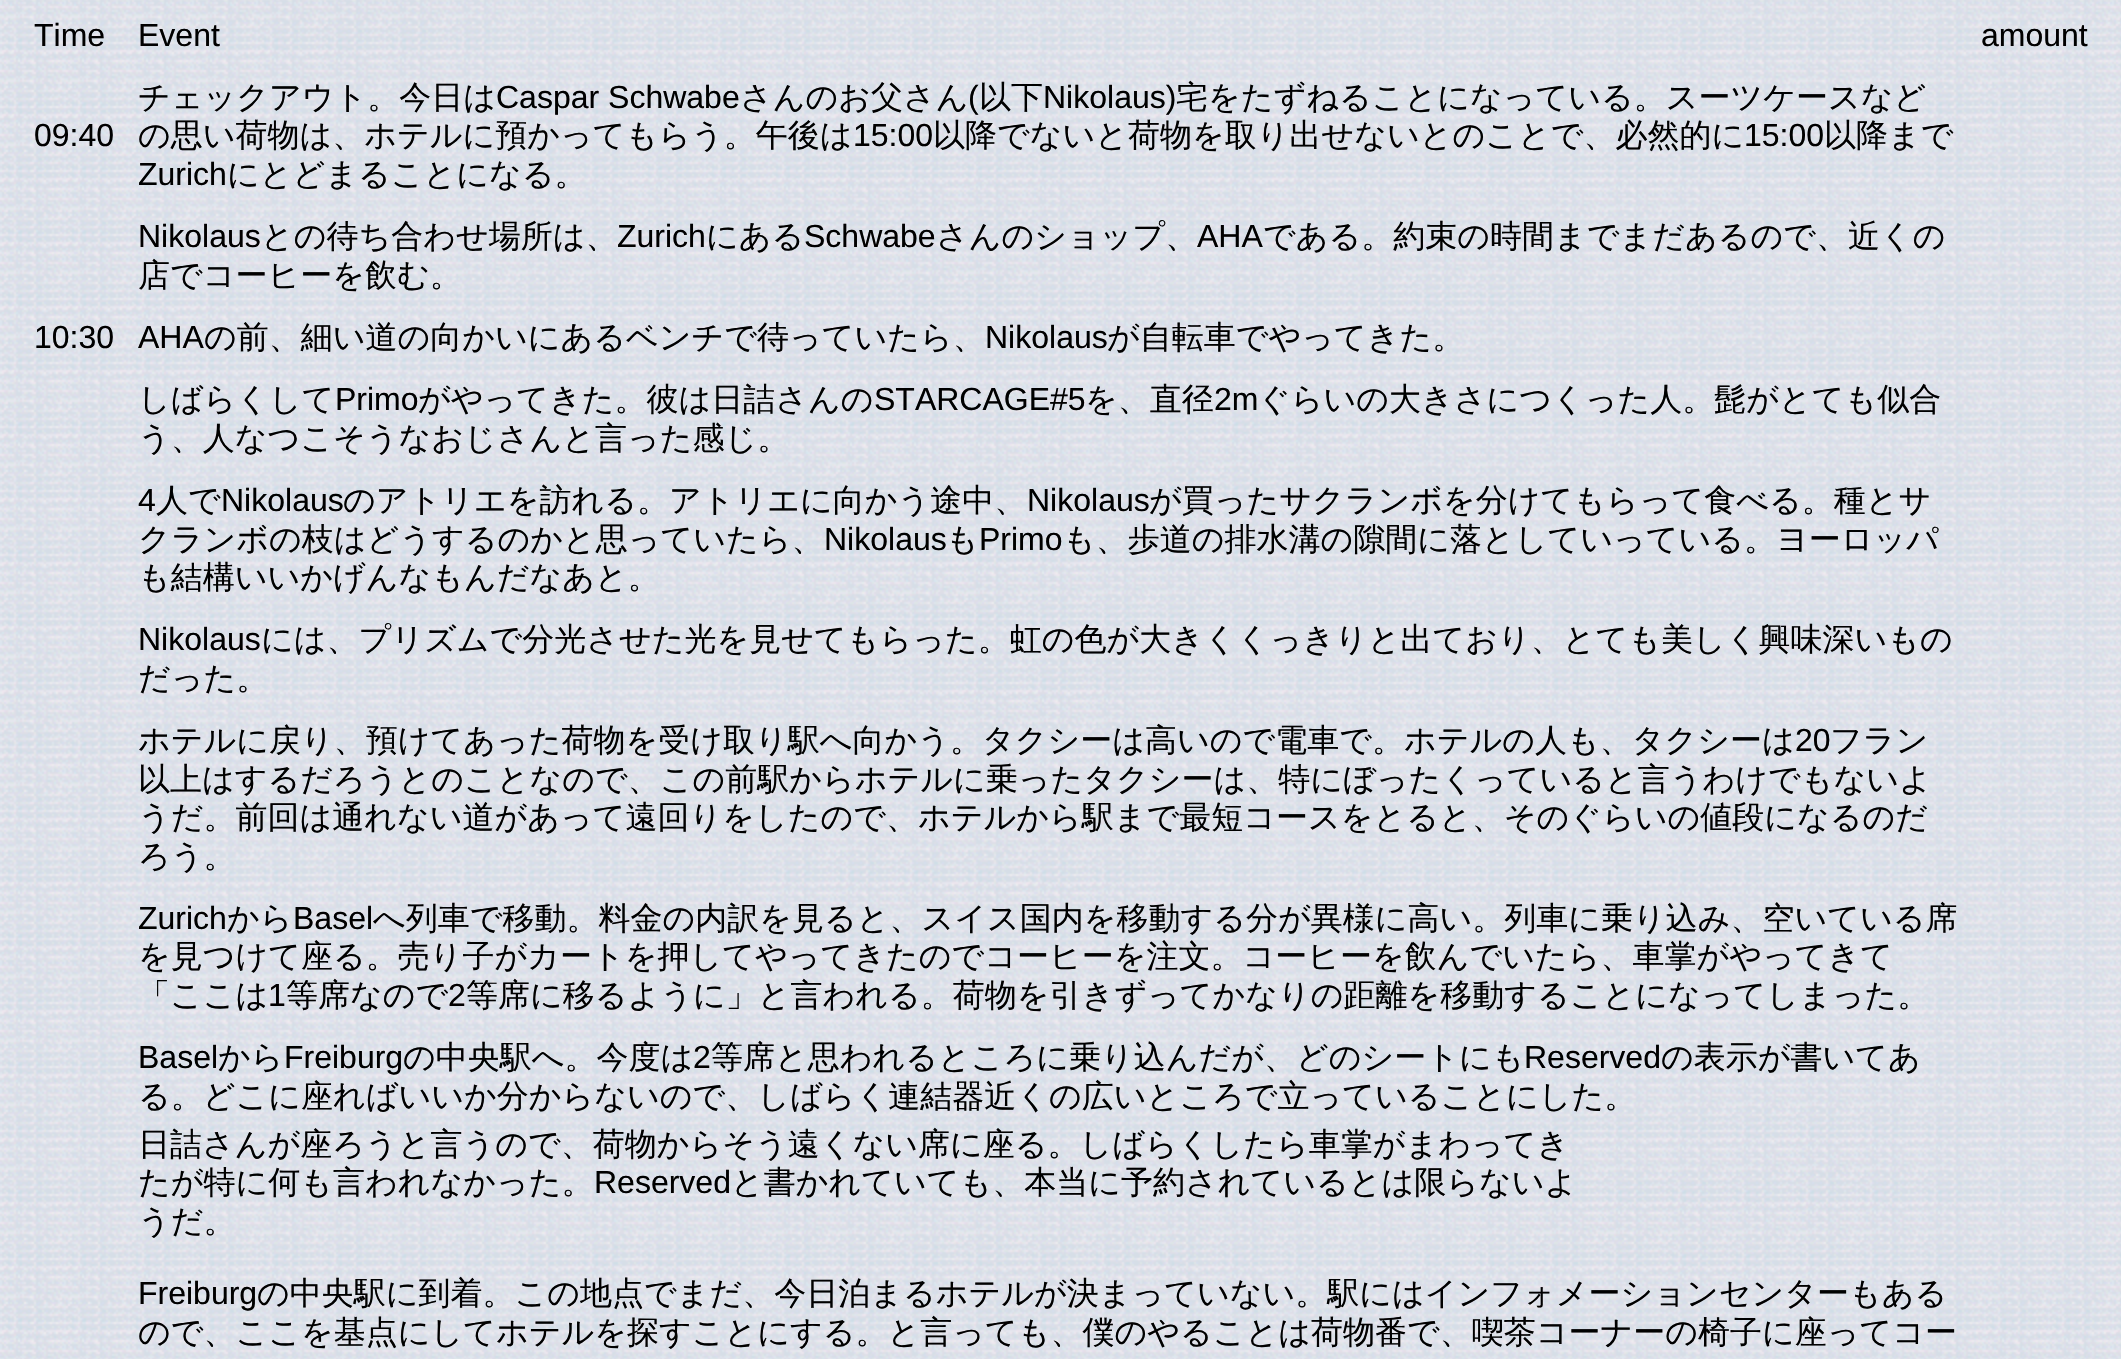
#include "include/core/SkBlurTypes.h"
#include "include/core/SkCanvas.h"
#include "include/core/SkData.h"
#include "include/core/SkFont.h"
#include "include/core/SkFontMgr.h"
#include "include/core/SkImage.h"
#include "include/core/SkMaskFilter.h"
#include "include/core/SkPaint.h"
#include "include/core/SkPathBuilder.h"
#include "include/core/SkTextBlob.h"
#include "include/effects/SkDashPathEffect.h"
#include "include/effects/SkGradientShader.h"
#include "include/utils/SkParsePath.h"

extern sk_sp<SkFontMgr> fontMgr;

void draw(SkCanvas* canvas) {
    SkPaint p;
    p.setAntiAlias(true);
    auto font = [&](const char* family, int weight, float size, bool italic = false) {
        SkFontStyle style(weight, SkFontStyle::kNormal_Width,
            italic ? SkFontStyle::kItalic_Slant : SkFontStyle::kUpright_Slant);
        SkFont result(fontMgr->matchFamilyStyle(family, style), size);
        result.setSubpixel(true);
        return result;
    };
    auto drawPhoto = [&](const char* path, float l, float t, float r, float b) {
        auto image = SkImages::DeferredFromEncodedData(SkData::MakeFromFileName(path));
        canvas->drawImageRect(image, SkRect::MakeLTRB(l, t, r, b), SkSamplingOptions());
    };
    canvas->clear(0xFFFFFFFF);
    drawPhoto("media/1.png", 0, 0, 2121, 1359);
    auto font1 = font("Liberation Sans", 400, 32);
    p.setColor(0xFF000000);
    {
        const struct { const char* s; float x, y; } items[] = {
            {"Time", 34, 46},
            {"Event", 138, 46},
            {"amount", 1981, 46},
            {"09:40", 34, 146},
        };
        for (auto [s, x, y] : items) {
            canvas->drawString(s, x, y, font1, p);
        }
    }
    auto font2 = font("WenQuanYi Zen Hei", 500, 32);
    canvas->drawString("チェックアウト。今日は", 138, 108, font2, p);
    canvas->drawString("Caspar Schwabe", 496, 108, font1, p);
    canvas->drawString("さんのお父さん", 740, 108, font2, p);
    canvas->drawString("(", 968, 108, font1, p);
    canvas->drawString("以下", 979, 108, font2, p);
    canvas->drawString("Nikolaus)", 1043, 108, font1, p);
    canvas->drawString("宅をたずねることになっている。スーツケースなど", 1176, 108, font2, p);
    canvas->drawString("の思い荷物は、ホテルに預かってもらう。午後は", 138, 146, font2, p);
    canvas->drawString("15:00", 853, 146, font1, p);
    canvas->drawString("以降でないと荷物を取り出せないとのことで、必然的に", 933, 146, font2, p);
    canvas->drawString("15:00", 1744, 146, font1, p);
    canvas->drawString("以降まで", 1824, 146, font2, p);
    canvas->drawString("Zurich", 138, 185, font1, p);
    canvas->drawString("にとどまることになる。", 227, 185, font2, p);
    canvas->drawString("Nikolaus", 138, 247, font1, p);
    canvas->drawString("との待ち合わせ場所は、", 261, 247, font2, p);
    canvas->drawString("Zurich", 617, 247, font1, p);
    canvas->drawString("にある", 706, 247, font2, p);
    canvas->drawString("Schwabe", 804, 247, font1, p);
    canvas->drawString("さんのショップ、", 936, 247, font2, p);
    canvas->drawString("AHA", 1197, 247, font1, p);
    canvas->drawString("である。約束の時間までまだあるので、近くの", 1263, 247, font2, p);
    canvas->drawString("店でコーヒーを飲む。", 138, 286, font2, p);
    canvas->drawString("10:30", 34, 348, font1, p);
    canvas->drawString("AHA", 138, 348, font1, p);
    canvas->drawString("の前、細い道の向かいにあるベンチで待っていたら、", 204, 348, font2, p);
    canvas->drawString("Nikolaus", 985, 348, font1, p);
    canvas->drawString("が自転車でやってきた。", 1107, 348, font2, p);
    canvas->drawString("しばらくして", 138, 410, font2, p);
    canvas->drawString("Primo", 335, 410, font1, p);
    canvas->drawString("がやってきた。彼は日詰さんの", 418, 410, font2, p);
    canvas->drawString("STARCAGE#5", 874, 410, font1, p);
    canvas->drawString("を、直径", 1085, 410, font2, p);
    canvas->drawString("2m", 1214, 410, font1, p);
    canvas->drawString("ぐらいの大きさにつくった人。髭がとても似合", 1258, 410, font2, p);
    canvas->drawString("う、人なつこそうなおじさんと言った感じ。", 138, 449, font2, p);
    canvas->drawString("4", 138, 511, font1, p);
    canvas->drawString("人で", 156, 511, font2, p);
    canvas->drawString("Nikolaus", 221, 511, font1, p);
    canvas->drawString("のアトリエを訪れる。アトリエに向かう途中、", 343, 511, font2, p);
    canvas->drawString("Nikolaus", 1027, 511, font1, p);
    canvas->drawString("が買ったサクランボを分けてもらって食べる。種とサ", 1149, 511, font2, p);
    canvas->drawString("クランボの枝はどうするのかと思っていたら、", 138, 550, font2, p);
    canvas->drawString("Nikolaus", 824, 550, font1, p);
    canvas->drawString("も", 946, 550, font2, p);
    canvas->drawString("Primo", 979, 550, font1, p);
    canvas->drawString("も、歩道の排水溝の隙間に落としていっている。ヨーロッパ", 1063, 550, font2, p);
    canvas->drawString("も結構いいかげんなもんだなあと。", 138, 588, font2, p);
    canvas->drawString("Nikolaus", 138, 650, font1, p);
    {
        const struct { const char* s; float x, y; } items[] = {
            {"には、プリズムで分光させた光を見せてもらった。虹の色が大きくくっきりと出ており、とても美しく興味深いもの", 261, 650},
            {"だった。", 138, 689},
            {"ホテルに戻り、預けてあった荷物を受け取り駅へ向かう。タクシーは高いので電車で。ホテルの人も、タクシーは", 138, 751},
        };
        for (auto [s, x, y] : items) {
            canvas->drawString(s, x, y, font2, p);
        }
    }
    canvas->drawString("20", 1795, 751, font1, p);
    {
        const struct { const char* s; float x, y; } items[] = {
            {"フラン", 1830, 751},
            {"以上はするだろうとのことなので、この前駅からホテルに乗ったタクシーは、特にぼったくっていると言うわけでもないよ", 138, 790},
            {"うだ。前回は通れない道があって遠回りをしたので、ホテルから駅まで最短コースをとると、そのぐらいの値段になるのだ", 138, 828},
            {"ろう。", 138, 867},
        };
        for (auto [s, x, y] : items) {
            canvas->drawString(s, x, y, font2, p);
        }
    }
    canvas->drawString("Zurich", 138, 929, font1, p);
    canvas->drawString("から", 227, 929, font2, p);
    canvas->drawString("Basel", 293, 929, font1, p);
    {
        const struct { const char* s; float x, y; } items[] = {
            {"へ列車で移動。料金の内訳を見ると、スイス国内を移動する分が異様に高い。列車に乗り込み、空いている席", 373, 929},
            {"を見つけて座る。売り子がカートを押してやってきたのでコーヒーを注文。コーヒーを飲んでいたら、車掌がやってきて", 138, 967},
            {"「ここは", 138, 1006},
        };
        for (auto [s, x, y] : items) {
            canvas->drawString(s, x, y, font2, p);
        }
    }
    canvas->drawString("1", 268, 1006, font1, p);
    canvas->drawString("等席なので", 286, 1006, font2, p);
    canvas->drawString("2", 448, 1006, font1, p);
    canvas->drawString("等席に移るように」と言われる。荷物を引きずってかなりの距離を移動することになってしまった。", 466, 1006, font2, p);
    canvas->drawString("Basel", 138, 1068, font1, p);
    canvas->drawString("から", 218, 1068, font2, p);
    canvas->drawString("Freiburg", 284, 1068, font1, p);
    canvas->drawString("の中央駅へ。今度は", 403, 1068, font2, p);
    canvas->drawString("2", 693, 1068, font1, p);
    canvas->drawString("等席と思われるところに乗り込んだが、どのシートにも", 711, 1068, font2, p);
    canvas->drawString("Reserved", 1524, 1068, font1, p);
    {
        const struct { const char* s; float x, y; } items[] = {
            {"の表示が書いてあ", 1661, 1068},
            {"る。どこに座ればいいか分からないので、しばらく連結器近くの広いところで立っていることにした。", 138, 1107},
            {"日詰さんが座ろうと言うので、荷物からそう遠くない席に座る。しばらくしたら車掌がまわってき", 138, 1155},
            {"たが特に何も言われなかった。", 138, 1193},
        };
        for (auto [s, x, y] : items) {
            canvas->drawString(s, x, y, font2, p);
        }
    }
    canvas->drawString("Reserved", 594, 1193, font1, p);
    canvas->drawString("と書かれていても、本当に予約されているとは限らないよ", 731, 1193, font2, p);
    canvas->drawString("うだ。", 138, 1232, font2, p);
    canvas->drawString("Freiburg", 138, 1304, font1, p);
    canvas->drawString("の中央駅に到着。この地点でまだ、今日泊まるホテルが決まっていない。駅にはインフォメーションセンターもある", 257, 1304, font2, p);
    canvas->drawString("ので、ここを基点にしてホテルを探すことにする。と言っても、僕のやることは荷物番で、喫茶コーナーの椅子に座ってコー", 138, 1343, font2, p);
}
